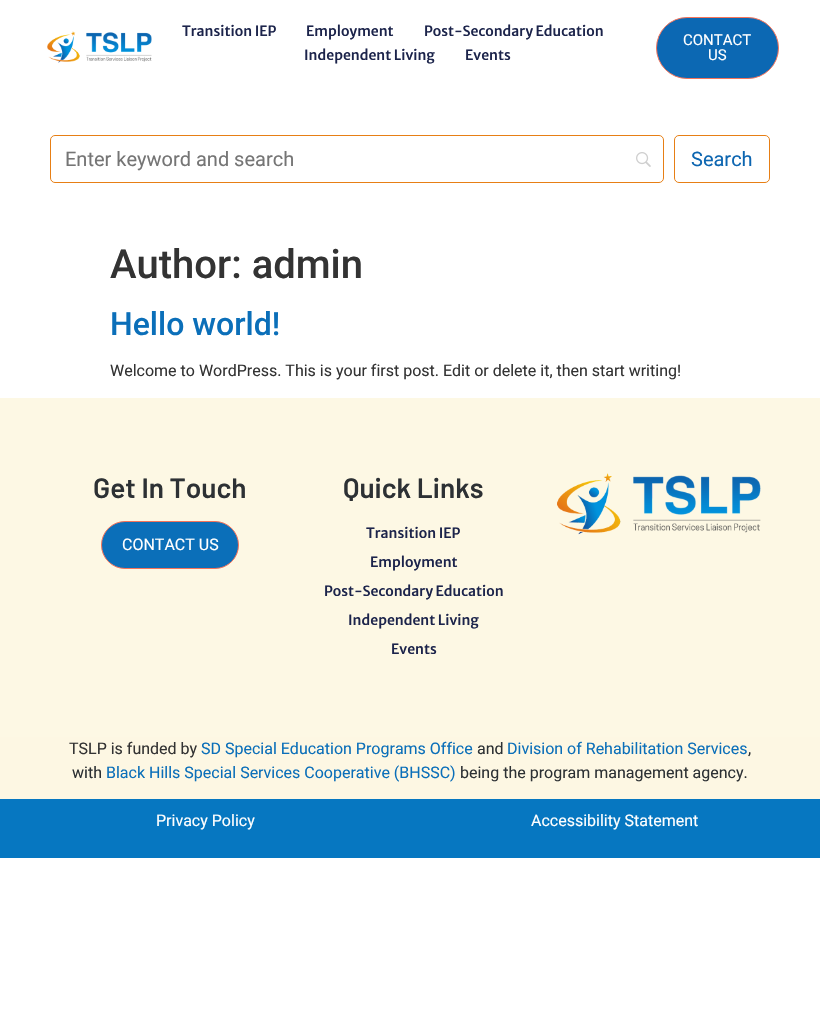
#include "include/core/SkBlurTypes.h"
#include "include/core/SkCanvas.h"
#include "include/core/SkData.h"
#include "include/core/SkFont.h"
#include "include/core/SkFontMgr.h"
#include "include/core/SkImage.h"
#include "include/core/SkMaskFilter.h"
#include "include/core/SkPaint.h"
#include "include/core/SkPathBuilder.h"
#include "include/core/SkTextBlob.h"
#include "include/effects/SkDashPathEffect.h"
#include "include/effects/SkGradientShader.h"
#include "include/utils/SkParsePath.h"

extern sk_sp<SkFontMgr> fontMgr;

void draw(SkCanvas* canvas) {
    SkPaint p;
    p.setAntiAlias(true);
    auto font = [&](const char* family, int weight, float size, bool italic = false) {
        SkFontStyle style(weight, SkFontStyle::kNormal_Width,
            italic ? SkFontStyle::kItalic_Slant : SkFontStyle::kUpright_Slant);
        SkFont result(fontMgr->matchFamilyStyle(family, style), size);
        result.setSubpixel(true);
        return result;
    };
    auto drawPhoto = [&](const char* path, float l, float t, float r, float b) {
        auto image = SkImages::DeferredFromEncodedData(SkData::MakeFromFileName(path));
        canvas->drawImageRect(image, SkRect::MakeLTRB(l, t, r, b), SkSamplingOptions());
    };
    canvas->clear(0xFFFFFFFF);
    drawPhoto("media/1.png", 47, 31, 152, 63);
    auto font1 = font("Merriweather Sans", 500, 14);
    p.setColor(0xFF1C244B);
    {
        const struct { const char* s; float x, y; } items[] = {
            {"Transition IEP", 182, 36},
            {"Employment", 306, 36},
            {"Post-Secondary Education", 424, 36},
            {"Independent Living", 304, 60},
            {"Events", 465, 60},
        };
        for (auto [s, x, y] : items) {
            canvas->drawString(s, x, y, font1, p);
        }
    }
    p.setColor(0xFF0C68B3);
    canvas->drawRoundRect(SkRect::MakeLTRB(656.5f, 17.5f, 778.5f, 78.5f), 30.5f, 30.5f, p);
    p.setStyle(SkPaint::kStroke_Style);
    p.setStrokeWidth(1);
    p.setColor(0xFFF5735A);
    canvas->drawRoundRect(SkRect::MakeLTRB(656.5f, 17.5f, 778.5f, 78.5f), 30.5f, 30.5f, p);
    auto font2 = font("Roboto", 400, 15);
    p.setStyle(SkPaint::kFill_Style);
    p.setColor(0xFFFFFFFF);
    canvas->drawString("CONTACT", 683, 45, font2, p);
    canvas->drawString("US", 708, 60, font2, p);
    drawPhoto("media/2.png", 636, 152, 651, 167);
    p.setStyle(SkPaint::kStroke_Style);
    p.setColor(0xFFE77F15);
    canvas->drawRoundRect(SkRect::MakeLTRB(50.5f, 135.5f, 663.5f, 182.5f), 4.5f, 4.5f, p);
    auto font3 = font("Roboto", 400, 20);
    p.setStyle(SkPaint::kFill_Style);
    p.setColor(0xFF757575);
    canvas->drawString("Enter keyword and search", 65, 166, font3, p);
    p.setStyle(SkPaint::kStroke_Style);
    p.setColor(0xFFE77F15);
    canvas->drawRoundRect(SkRect::MakeLTRB(674.5f, 135.5f, 769.5f, 182.5f), 4.5f, 4.5f, p);
    p.setStyle(SkPaint::kFill_Style);
    p.setColor(0xFF0D66B1);
    canvas->drawString("Search", 691, 166, font3, p);
    auto font4 = font("Roboto", 500, 40);
    p.setColor(0xFF333333);
    canvas->drawString("Author: admin", 110, 278, font4, p);
    auto font5 = font("Roboto", 500, 32);
    p.setColor(0xFF0B6FB9);
    canvas->drawString("Hello world!", 110, 335, font5, p);
    auto font6 = font("Roboto", 400, 16);
    p.setColor(0xFF333333);
    canvas->drawString("Welcome to WordPress. This is your first post. Edit or delete it, then start writing!", 110, 376, font6, p);
    p.setColor(0xFFFDF8E4);
    canvas->drawRect(SkRect::MakeLTRB(0, 398, 820, 737), p);
    auto font7 = font("Barlow", 600, 28);
    p.setColor(0xFF2D3134);
    canvas->drawString("Get In Touch", 93, 498, font7, p);
    p.setColor(0xFF0B6FB9);
    canvas->drawRoundRect(SkRect::MakeLTRB(101.5f, 521.5f, 238.5f, 568.5f), 23.5f, 23.5f, p);
    p.setStyle(SkPaint::kStroke_Style);
    p.setColor(0xFFF5735A);
    canvas->drawRoundRect(SkRect::MakeLTRB(101.5f, 521.5f, 238.5f, 568.5f), 23.5f, 23.5f, p);
    p.setStyle(SkPaint::kFill_Style);
    p.setColor(0xFFFFFFFF);
    canvas->drawString("CONTACT US", 122, 550, font6, p);
    p.setColor(0xFF2D3134);
    canvas->drawString("Quick Links", 343, 498, font7, p);
    p.setColor(0xFF1C244B);
    {
        const struct { const char* s; float x, y; } items[] = {
            {"Transition IEP", 366, 538},
            {"Employment", 370, 567},
            {"Post-Secondary Education", 324, 596},
            {"Independent Living", 348, 625},
            {"Events", 391, 654},
        };
        for (auto [s, x, y] : items) {
            canvas->drawString(s, x, y, font1, p);
        }
    }
    drawPhoto("media/3.png", 557, 473, 761, 535);
    p.setColor(0xFFFDF7E3);
    canvas->drawRect(SkRect::MakeLTRB(0, 737, 820, 799), p);
    p.setColor(0xFF333333);
    canvas->drawString("TSLP is funded by", 69, 754, font6, p);
    p.setColor(0xFF0B6FB9);
    canvas->drawString("SD Special Education Programs Office", 201, 754, font6, p);
    p.setColor(0xFF2D3134);
    canvas->drawString("and", 477, 754, font6, p);
    p.setColor(0xFF0B6FB9);
    canvas->drawString("Division of Rehabilitation Services", 507, 754, font6, p);
    p.setColor(0xFF2D3134);
    canvas->drawString(",", 748, 754, font6, p);
    canvas->drawString("with", 72, 778, font6, p);
    p.setColor(0xFF0B6FB9);
    canvas->drawString("Black Hills Special Services Cooperative (BHSSC)", 106, 778, font6, p);
    p.setColor(0xFF2D3134);
    canvas->drawString("being the program management agency.", 460, 778, font6, p);
    p.setColor(0xFF0677C1);
    canvas->drawRect(SkRect::MakeLTRB(0, 799, 820, 858), p);
    p.setColor(0xFFFFFFFF);
    canvas->drawString("Privacy Policy", 156, 826, font6, p);
    canvas->drawString("Accessibility Statement", 531, 826, font6, p);
}
